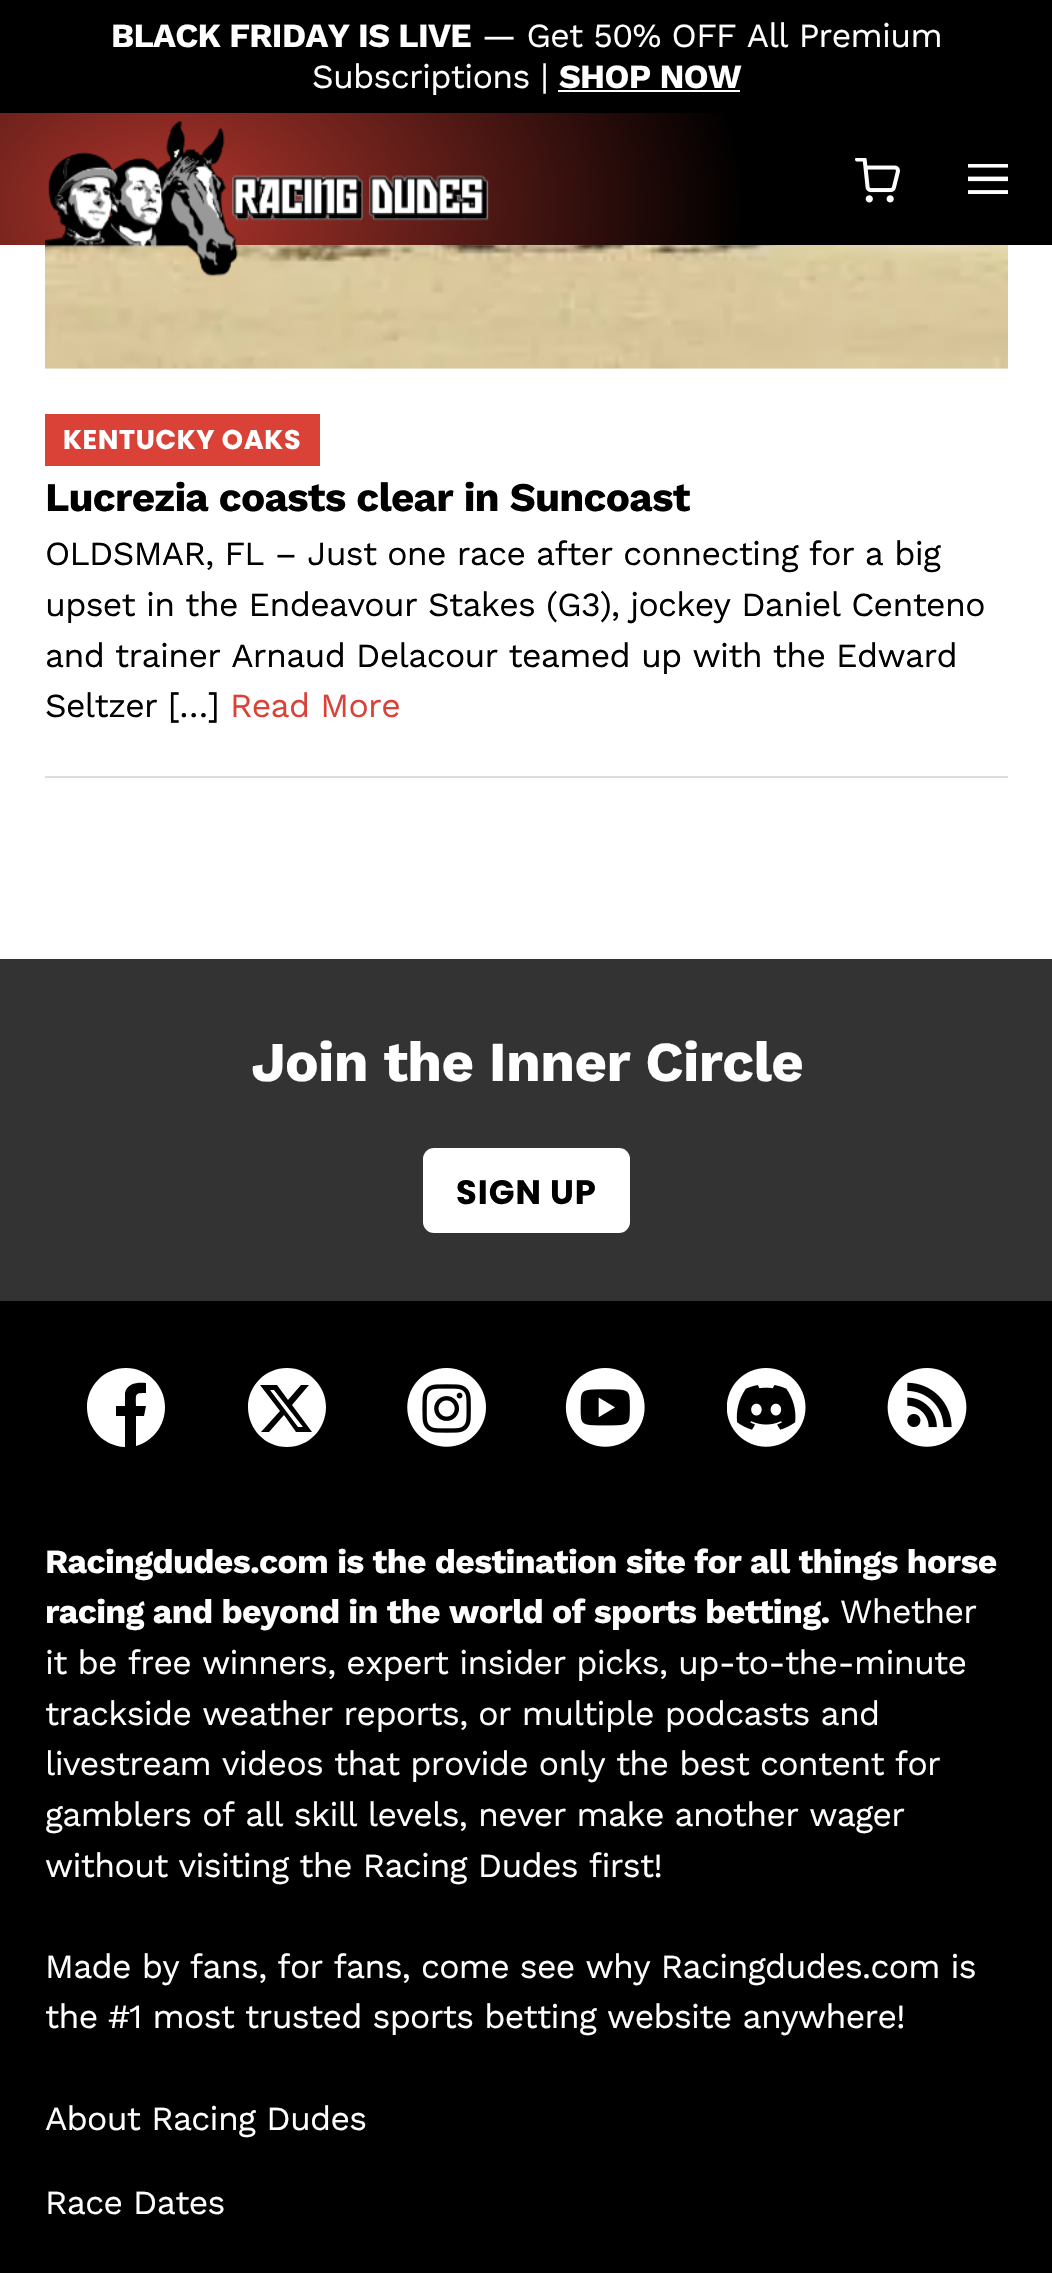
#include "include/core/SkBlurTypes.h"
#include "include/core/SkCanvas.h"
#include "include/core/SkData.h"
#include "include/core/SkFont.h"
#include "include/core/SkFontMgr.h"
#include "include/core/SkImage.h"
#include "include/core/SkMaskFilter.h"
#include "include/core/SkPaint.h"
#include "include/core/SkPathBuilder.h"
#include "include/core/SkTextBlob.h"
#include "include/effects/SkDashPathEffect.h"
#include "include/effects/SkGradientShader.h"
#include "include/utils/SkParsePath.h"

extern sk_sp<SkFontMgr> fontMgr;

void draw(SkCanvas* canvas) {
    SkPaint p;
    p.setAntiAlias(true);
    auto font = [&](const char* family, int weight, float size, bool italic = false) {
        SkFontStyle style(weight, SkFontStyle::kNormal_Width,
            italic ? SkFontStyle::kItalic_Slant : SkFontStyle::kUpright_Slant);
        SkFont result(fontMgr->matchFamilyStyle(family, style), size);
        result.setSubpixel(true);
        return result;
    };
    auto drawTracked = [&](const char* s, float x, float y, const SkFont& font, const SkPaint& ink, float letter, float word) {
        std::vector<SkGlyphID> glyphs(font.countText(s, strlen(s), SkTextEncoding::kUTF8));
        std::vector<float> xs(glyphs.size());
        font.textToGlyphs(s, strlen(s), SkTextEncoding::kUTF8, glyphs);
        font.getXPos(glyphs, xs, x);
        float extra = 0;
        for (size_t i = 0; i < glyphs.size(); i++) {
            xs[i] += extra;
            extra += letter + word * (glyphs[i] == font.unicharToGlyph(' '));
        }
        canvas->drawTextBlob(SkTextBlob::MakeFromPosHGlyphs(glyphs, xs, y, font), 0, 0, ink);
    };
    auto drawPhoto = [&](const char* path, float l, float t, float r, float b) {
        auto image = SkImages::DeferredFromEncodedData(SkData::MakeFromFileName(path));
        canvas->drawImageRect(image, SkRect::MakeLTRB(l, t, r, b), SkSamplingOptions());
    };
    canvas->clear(0xFFFFFFFF);
    p.setColor(0xFF000000);
    canvas->drawRect(SkRect::MakeLTRB(0, 0, 1052, 113), p);
    auto font1 = font("Work Sans", 700, 33.75f);
    p.setColor(0xFFFFFFFF);
    drawTracked("BLACK FRIDAY IS LIVE", 111, 47, font1, p, -0.67f, 0);
    auto font2 = font("Work Sans", 400, 33.75f);
    drawTracked("— Get 50% OFF All Premium", 482, 47, font2, p, -0.67f, 0);
    drawTracked("Subscriptions |", 312, 88, font2, p, -0.67f, 0);
    drawTracked("SHOP NOW", 559, 88, font1, p, -0.67f, 0);
    canvas->drawRect(SkRect::MakeLTRB(558, 90, 740, 92), p);
    {
        const SkColor colors[] = {0xFFAF352C, 0xFF000000};
        const float stops[] = {0, 1};
        SkMatrix m = SkMatrix::Translate(167, 207).preScale(579, 398);
        p.setShader(SkGradientShader::MakeRadial({0, 0}, 1, colors, stops, 2, SkTileMode::kClamp, 0, &m));
        p.setAlpha(255);
    }
    canvas->drawRect(SkRect::MakeLTRB(0, 113, 1052, 245), p);
    drawPhoto("media/4.png", 45, 245, 1008, 369);
    drawPhoto("media/1.png", 45, 121, 489, 277);
    drawPhoto("media/2.png", 855, 158, 900, 203);
    drawPhoto("media/3.png", 968, 164, 1008, 194);
    p.setShader(nullptr);
    p.setColor(0xFFDDDDDD);
    canvas->drawRect(SkRect::MakeLTRB(45, 776, 1008, 778), p);
    p.setColor(0xFFDB4237);
    canvas->drawRect(SkRect::MakeLTRB(45, 414, 320, 466), p);
    auto font3 = font("Poppins", 700, 27);
    p.setColor(0xFFFFFFFF);
    drawTracked("KENTUCKY OAKS", 63, 449, font3, p, 0.75f, 0);
    auto font4 = font("Work Sans", 700, 40.5f);
    p.setColor(0xFF000000);
    drawTracked("Lucrezia coasts clear in Suncoast", 45, 511, font4, p, -0.8f, 0);
    {
        const struct { const char* s; float x, y; } items[] = {
            {"OLDSMAR, FL – Just one race after connecting for a big", 45, 565},
            {"upset in the Endeavour Stakes (G3), jockey Daniel Centeno", 45, 616},
            {"and trainer Arnaud Delacour teamed up with the Edward", 45, 667},
            {"Seltzer […]", 45, 717},
        };
        for (auto [s, x, y] : items) {
            drawTracked(s, x, y, font2, p, -0.67f, 0);
        }
    }
    p.setColor(0xFFDB4237);
    drawTracked("Read More", 230, 717, font2, p, -0.67f, 0);
    p.setColor(0xFF333333);
    canvas->drawRect(SkRect::MakeLTRB(0, 959, 1052, 1301), p);
    auto font5 = font("Work Sans", 700, 56.25f);
    p.setColor(0xFFFFFFFF);
    drawTracked("Join the Inner Circle", 251, 1081, font5, p, -0.67f, 0);
    canvas->drawRoundRect(SkRect::MakeLTRB(423, 1148, 630, 1233), 11, 11, p);
    auto font6 = font("Poppins", 700, 33.75f);
    p.setColor(0xFF000000);
    drawTracked("SIGN UP", 456, 1204, font6, p, 1, 0);
    canvas->drawRect(SkRect::MakeLTRB(0, 1301, 1052, 2273), p);
    p.setColor(0xFFFFFFFF);
    canvas->drawPath(SkPathBuilder().moveTo(125, 1447).lineTo(125, 1416).lineTo(116, 1416).lineTo(116, 1406).lineTo(125, 1406).lineTo(125, 1393).cubicTo(127, 1383, 138, 1382, 146, 1383).lineTo(146, 1393).cubicTo(134, 1393, 136, 1394, 136, 1406).lineTo(146, 1406).lineTo(144, 1416).lineTo(136, 1416).lineTo(136, 1446).cubicTo(153, 1441, 165, 1426, 165, 1407).cubicTo(165, 1386, 148, 1368, 126, 1368).cubicTo(104, 1368, 87, 1386, 87, 1407).cubicTo(87, 1429, 104, 1446, 125, 1447).close().detach(), p);
    canvas->drawPath(SkPathBuilder().moveTo(287, 1368).cubicTo(309, 1368, 326, 1386, 326, 1407).cubicTo(326, 1429, 309, 1447, 287, 1447).cubicTo(265, 1447, 248, 1429, 248, 1407).cubicTo(248, 1386, 265, 1368, 287, 1368).close().moveTo(277, 1385).lineTo(260, 1385).lineTo(280, 1411).lineTo(261, 1432).lineTo(269, 1432).lineTo(284, 1415).lineTo(296, 1432).lineTo(312, 1432).lineTo(292, 1405).lineTo(309, 1385).lineTo(301, 1385).lineTo(288, 1400).close().moveTo(274, 1390).lineTo(303, 1427).lineTo(298, 1427).lineTo(270, 1390).close().detach(), p);
    drawPhoto("media/5.png", 407, 1368, 486, 1447);
    drawPhoto("media/6.png", 565, 1368, 645, 1447);
    drawPhoto("media/7.png", 727, 1368, 806, 1447);
    drawPhoto("media/8.png", 887, 1368, 967, 1447);
    drawTracked("Racingdudes.com is the destination site for all things horse", 45, 1573, font1, p, -0.67f, 0);
    drawTracked("racing and beyond in the world of sports betting.", 45, 1623, font1, p, -0.67f, 0);
    {
        const struct { const char* s; float x, y; } items[] = {
            {"Whether", 840, 1623},
            {"it be free winners, expert insider picks, up-to-the-minute", 45, 1674},
            {"trackside weather reports, or multiple podcasts and", 45, 1725},
            {"livestream videos that provide only the best content for", 45, 1775},
            {"gamblers of all skill levels, never make another wager", 45, 1826},
            {"without visiting the Racing Dudes first!", 45, 1877},
            {"Made by fans, for fans, come see why Racingdudes.com is", 45, 1978},
            {"the #1 most trusted sports betting website anywhere!", 45, 2028},
            {"About Racing Dudes", 45, 2130},
            {"Race Dates", 45, 2214},
        };
        for (auto [s, x, y] : items) {
            drawTracked(s, x, y, font2, p, -0.67f, 0);
        }
    }
}
